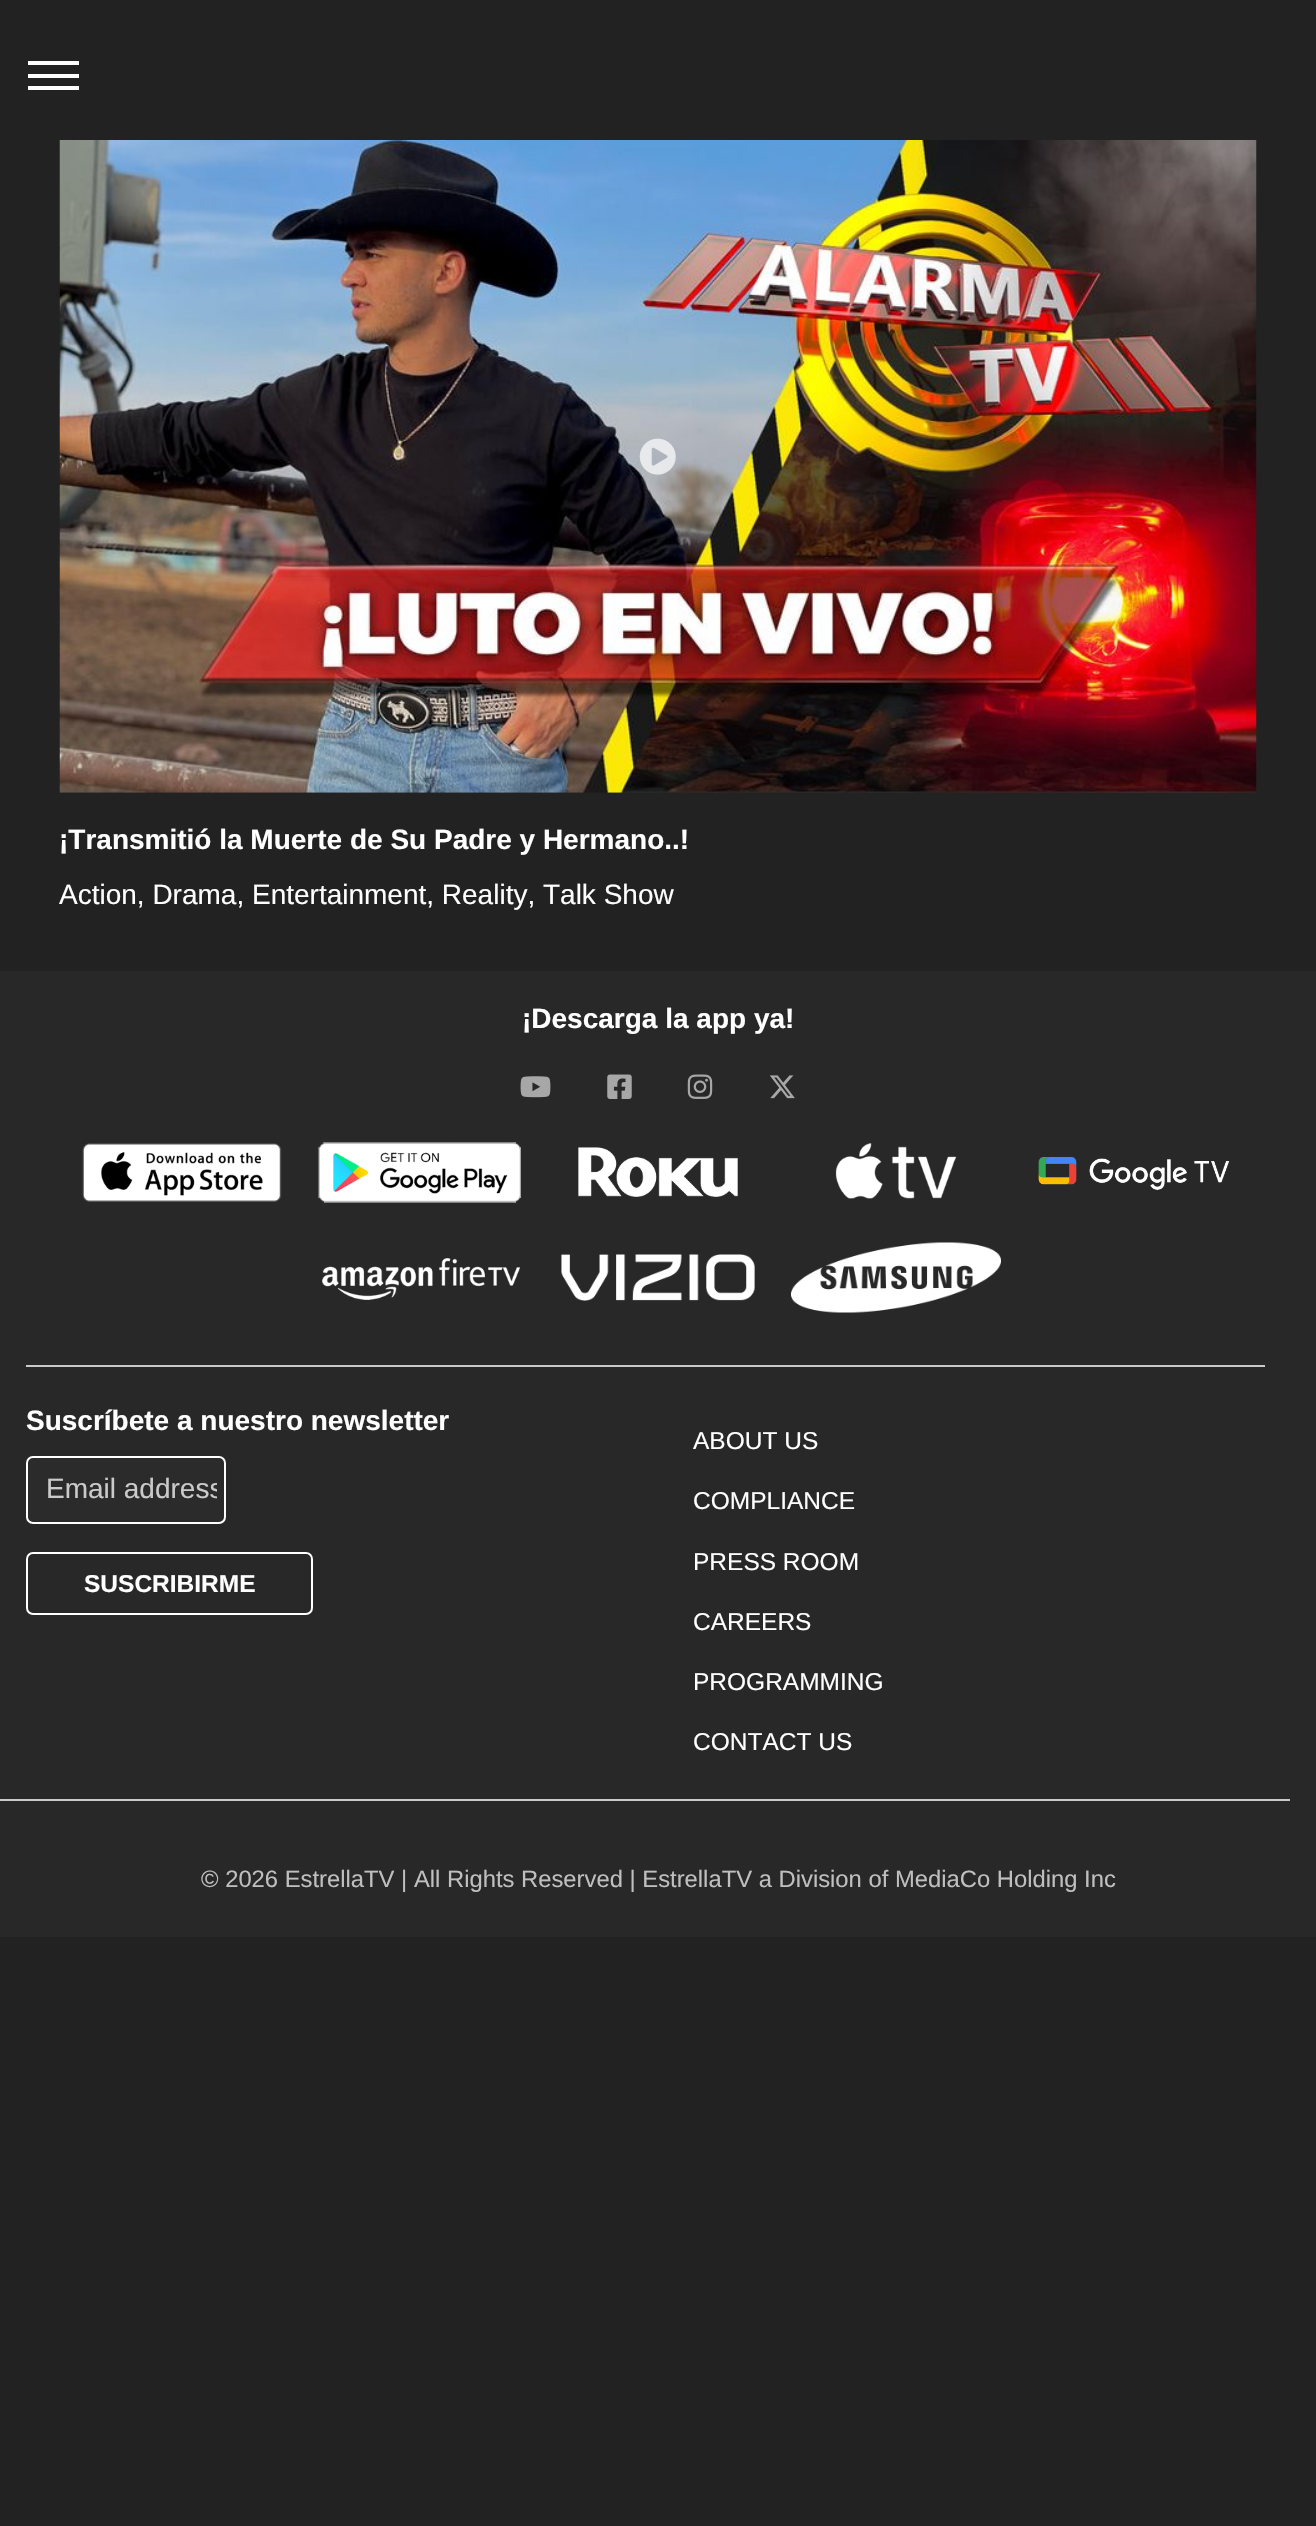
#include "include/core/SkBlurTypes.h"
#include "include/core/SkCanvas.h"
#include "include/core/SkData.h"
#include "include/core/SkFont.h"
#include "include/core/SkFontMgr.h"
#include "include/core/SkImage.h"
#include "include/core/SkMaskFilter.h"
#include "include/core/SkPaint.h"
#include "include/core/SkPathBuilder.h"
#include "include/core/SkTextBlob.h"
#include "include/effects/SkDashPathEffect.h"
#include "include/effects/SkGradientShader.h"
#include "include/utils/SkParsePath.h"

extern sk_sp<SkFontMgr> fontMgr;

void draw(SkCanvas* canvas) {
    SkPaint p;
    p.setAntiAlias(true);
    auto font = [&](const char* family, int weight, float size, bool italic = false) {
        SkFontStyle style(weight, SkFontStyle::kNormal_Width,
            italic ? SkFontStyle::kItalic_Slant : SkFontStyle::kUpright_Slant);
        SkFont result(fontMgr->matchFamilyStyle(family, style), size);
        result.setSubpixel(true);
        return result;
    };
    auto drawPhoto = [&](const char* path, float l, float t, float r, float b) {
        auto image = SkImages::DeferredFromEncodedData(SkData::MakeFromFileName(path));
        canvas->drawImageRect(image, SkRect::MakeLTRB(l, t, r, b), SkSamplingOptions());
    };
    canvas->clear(0xFF222222);
    {
        const struct { float l, t, r, b; SkColor color; } items[] = {
            {28, 86, 79, 90, 0xFFFEFEFE},
            {28, 74, 79, 78, 0xFFFEFEFE},
            {28, 61, 79, 65, 0xFFFFFFFF},
        };
        for (auto [l, t, r, b, color] : items) {
            p.setColor(color);
            canvas->drawRect(SkRect::MakeLTRB(l, t, r, b), p);
        }
    }
    drawPhoto("media/1.png", 59, 140, 1257, 793);
    drawPhoto("media/2.png", 639, 438, 676, 475);
    auto font1 = font("Liberation Sans", 700, 28);
    canvas->drawString("¡Transmitió la Muerte de Su Padre y Hermano..!", 59, 849, font1, p);
    auto font2 = font("Liberation Sans", 400, 28);
    canvas->drawString("Action, Drama, Entertainment, Reality, Talk Show", 59, 904, font2, p);
    p.setColor(0xFF282828);
    canvas->drawRect(SkRect::MakeLTRB(0, 971, 1316, 1937), p);
    p.setColor(0xFFFFFFFF);
    canvas->drawString("¡Descarga la app ya!", 522, 1028, font1, p);
    drawPhoto("media/3.png", 520, 1076, 551, 1098);
    drawPhoto("media/4.png", 607, 1074, 632, 1099);
    drawPhoto("media/5.png", 687, 1074, 713, 1099);
    drawPhoto("media/6.png", 769, 1075, 795, 1099);
    drawPhoto("media/7.png", 82, 1143, 282, 1202);
    drawPhoto("media/8.png", 318, 1142, 521, 1203);
    drawPhoto("media/9.png", 578, 1147, 738, 1197);
    drawPhoto("media/10.png", 835, 1143, 957, 1199);
    drawPhoto("media/11.png", 1038, 1157, 1230, 1190);
    drawPhoto("media/12.png", 322, 1258, 520, 1300);
    drawPhoto("media/13.png", 561, 1254, 755, 1301);
    drawPhoto("media/14.png", 791, 1242, 1001, 1313);
    p.setColor(0xFFCACACA);
    canvas->drawRect(SkRect::MakeLTRB(26, 1365, 1265, 1367), p);
    p.setColor(0xFFFFFFFF);
    canvas->drawString("Suscríbete a nuestro newsletter", 26, 1430, font1, p);
    p.setColor(0xFF2B2B2B);
    canvas->drawRoundRect(SkRect::MakeLTRB(27, 1457, 225, 1523), 6, 6, p);
    p.setStyle(SkPaint::kStroke_Style);
    p.setStrokeWidth(2);
    p.setColor(0xFFFFFFFF);
    canvas->drawRoundRect(SkRect::MakeLTRB(27, 1457, 225, 1523), 6, 6, p);
    canvas->save();
    canvas->clipRect(SkRect::MakeLTRB(46, 1474, 217, 1505));
    p.setStyle(SkPaint::kFill_Style);
    p.setColor(0xFFCACACA);
    canvas->drawString("Email address", 46, 1498, font2, p);
    canvas->restore();
    p.setStyle(SkPaint::kStroke_Style);
    p.setColor(0xFFFFFFFF);
    canvas->drawRoundRect(SkRect::MakeLTRB(27, 1553, 312, 1614), 6, 6, p);
    auto font3 = font("Liberation Sans", 700, 24.5f);
    p.setStyle(SkPaint::kFill_Style);
    canvas->drawString("SUSCRIBIRME", 84, 1592, font3, p);
    auto font4 = font("Liberation Sans", 400, 24.5f);
    {
        const struct { const char* s; float x, y; } items[] = {
            {"ABOUT US", 693, 1449},
            {"COMPLIANCE", 693, 1509},
            {"PRESS ROOM", 693, 1570},
            {"CAREERS", 693, 1630},
            {"PROGRAMMING", 693, 1690},
            {"CONTACT US", 693, 1750},
        };
        for (auto [s, x, y] : items) {
            canvas->drawString(s, x, y, font4, p);
        }
    }
    p.setColor(0xFFCACACA);
    canvas->drawRect(SkRect::MakeLTRB(0, 1799, 1290, 1801), p);
    auto font5 = font("Liberation Sans", 400, 23.8f);
    p.setColor(0xFFBFBFBF);
    canvas->drawString("© 2026 EstrellaTV | All Rights Reserved | EstrellaTV a Division of MediaCo Holding Inc", 201, 1887, font5, p);
}
